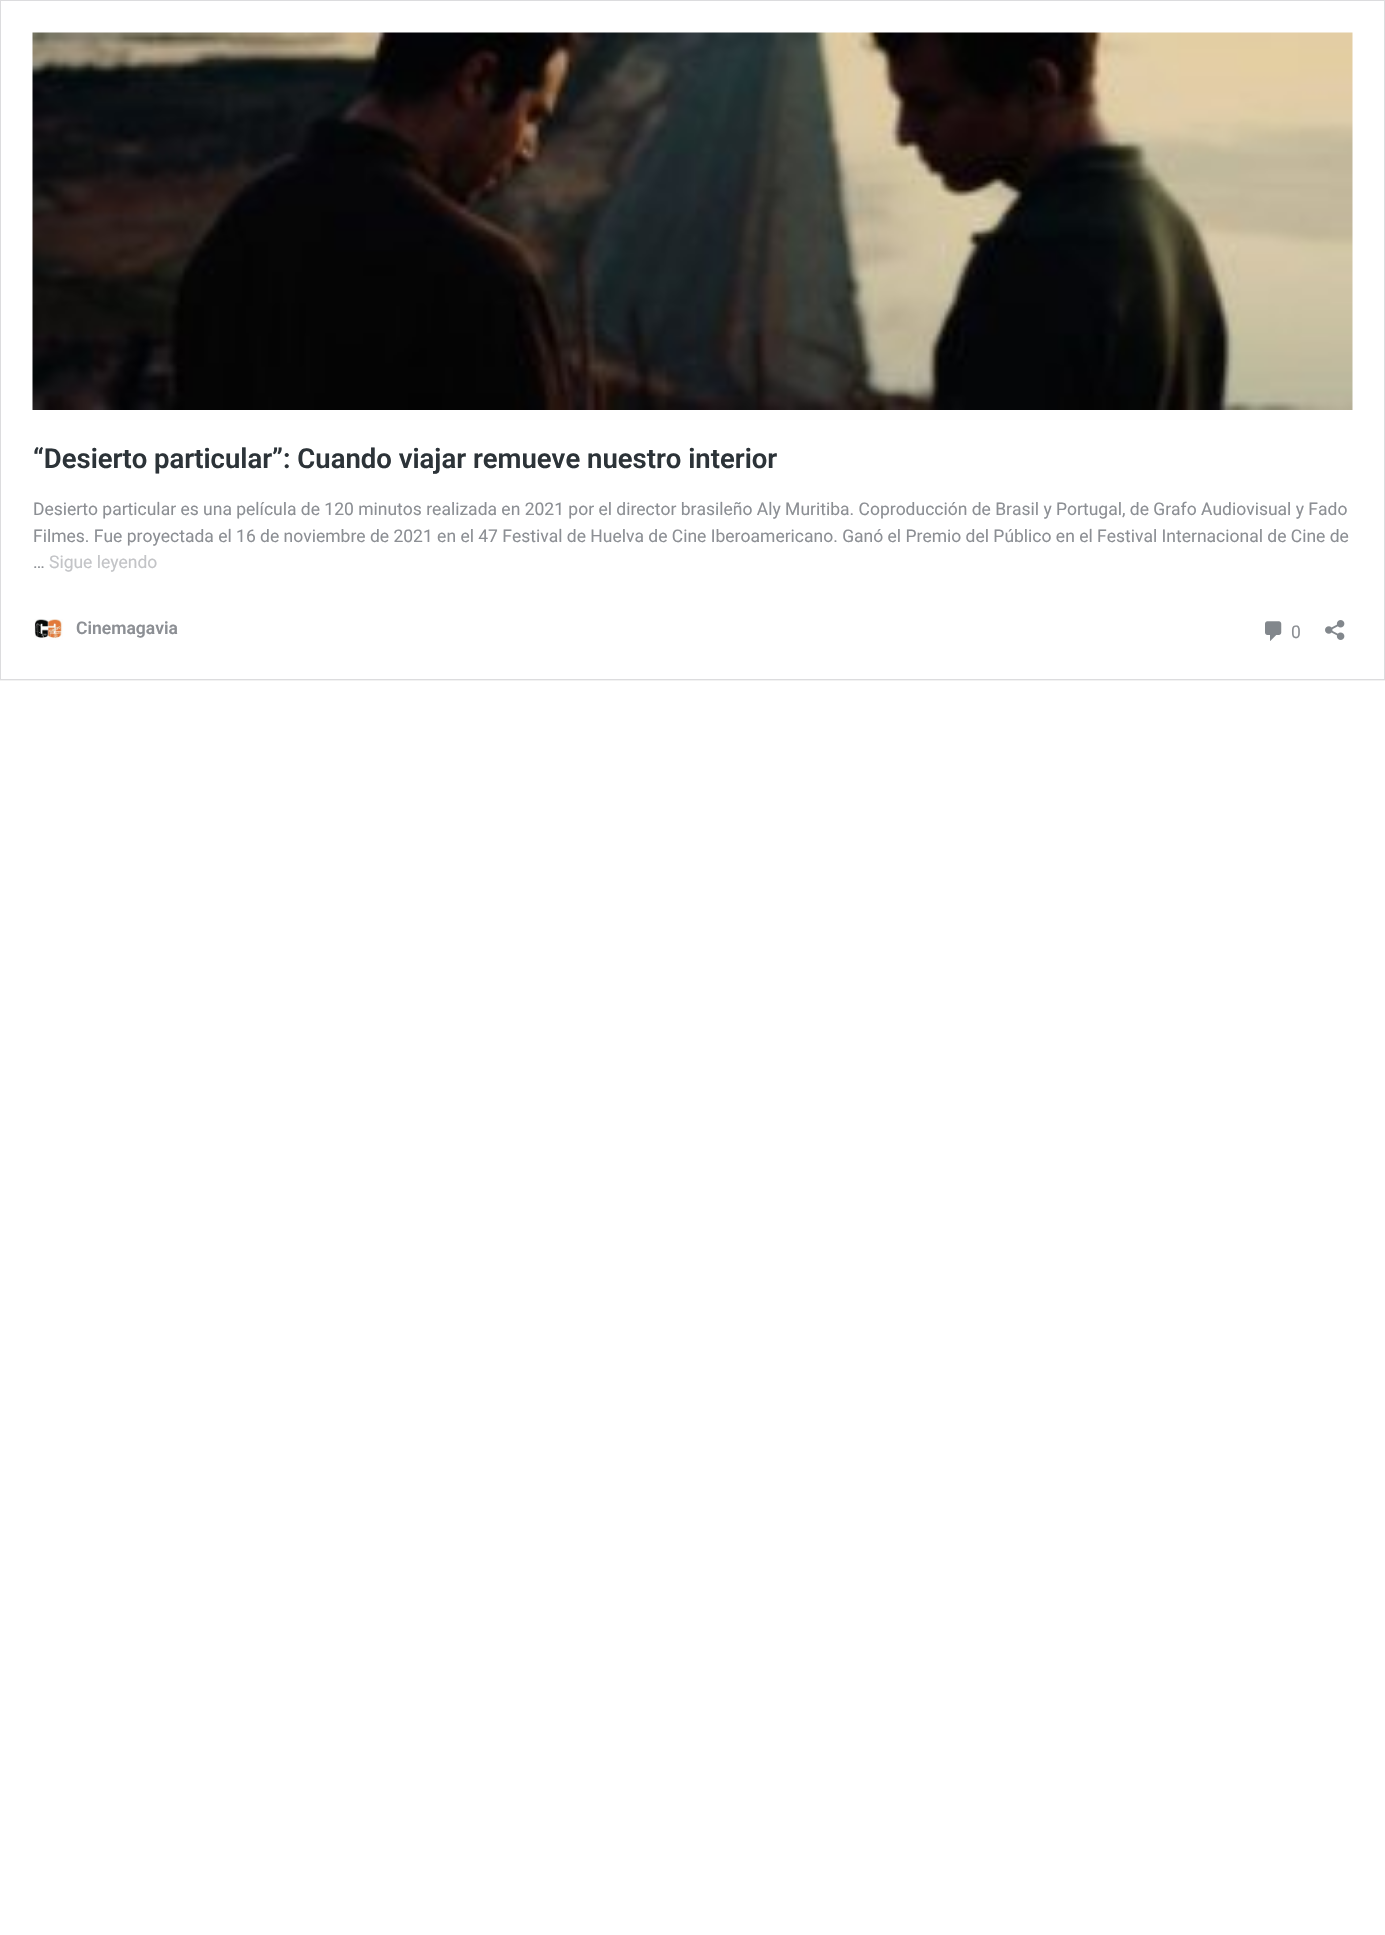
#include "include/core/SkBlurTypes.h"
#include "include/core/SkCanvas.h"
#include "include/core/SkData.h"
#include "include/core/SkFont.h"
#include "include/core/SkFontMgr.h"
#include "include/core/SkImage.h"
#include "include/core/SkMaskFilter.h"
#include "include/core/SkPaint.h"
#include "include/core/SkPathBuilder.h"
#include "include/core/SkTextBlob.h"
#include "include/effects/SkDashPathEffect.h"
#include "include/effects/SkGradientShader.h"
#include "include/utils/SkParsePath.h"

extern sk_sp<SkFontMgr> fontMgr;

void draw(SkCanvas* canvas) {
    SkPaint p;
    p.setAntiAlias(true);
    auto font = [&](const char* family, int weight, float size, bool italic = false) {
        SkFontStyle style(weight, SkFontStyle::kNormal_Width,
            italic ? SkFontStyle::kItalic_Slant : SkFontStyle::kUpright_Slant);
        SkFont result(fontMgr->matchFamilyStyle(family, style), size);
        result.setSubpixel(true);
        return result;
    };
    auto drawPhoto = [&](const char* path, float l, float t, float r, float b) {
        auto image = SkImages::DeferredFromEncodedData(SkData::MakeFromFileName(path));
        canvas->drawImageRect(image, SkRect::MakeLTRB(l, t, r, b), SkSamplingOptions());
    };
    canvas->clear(0xFFFFFFFF);
    canvas->save();
    canvas->clipRect(SkRect::MakeLTRB(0, 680, 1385, 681));
    p.setColor(0x0D000000);
    p.setMaskFilter(SkMaskFilter::MakeBlur(kNormal_SkBlurStyle, 0.5f));
    canvas->drawRect(SkRect::MakeLTRB(0, 1, 1385, 681), p);
    p.setMaskFilter(nullptr);
    canvas->restore();
    p.setStyle(SkPaint::kStroke_Style);
    p.setStrokeWidth(1);
    p.setColor(0xFFDCDCDE);
    canvas->drawRect(SkRect::MakeLTRB(0.5f, 0.5f, 1384.5f, 679.5f), p);
    drawPhoto("media/1.png", 32, 32, 1353, 410);
    auto font1 = font("Roboto", 600, 27.5f);
    p.setStyle(SkPaint::kFill_Style);
    p.setColor(0xFF2C3338);
    canvas->drawString("“Desierto particular”: Cuando viajar remueve nuestro interior", 33, 468, font1, p);
    auto font2 = font("Roboto", 400, 17.5f);
    p.setColor(0xFF8C8F94);
    {
        const struct { const char* s; float x, y; } items[] = {
            {"Desierto particular es una película de 120 minutos realizada en 2021 por el director brasileño Aly Muritiba. Coproducción de Brasil y Portugal, de Grafo Audiovisual y Fado", 33, 515},
            {"Filmes. Fue proyectada el 16 de noviembre de 2021 en el 47 Festival de Huelva de Cine Iberoamericano. Ganó el Premio del Público en el Festival Internacional de Cine de", 33, 542},
            {"…", 33, 568},
        };
        for (auto [s, x, y] : items) {
            canvas->drawString(s, x, y, font2, p);
        }
    }
    p.setColor(0xFFC3C4C7);
    canvas->drawString("Sigue leyendo", 49, 568, font2, p);
    drawPhoto("media/2.png", 34, 619, 63, 640);
    auto font3 = font("Roboto", 600, 17.5f);
    p.setColor(0xFF8C8F94);
    canvas->drawString("Cinemagavia", 76, 634, font3, p);
    drawPhoto("media/3.png", 1265, 621, 1282, 641);
    canvas->drawString("0", 1291, 638, font2, p);
    drawPhoto("media/4.png", 1325, 620, 1345, 640);
}
